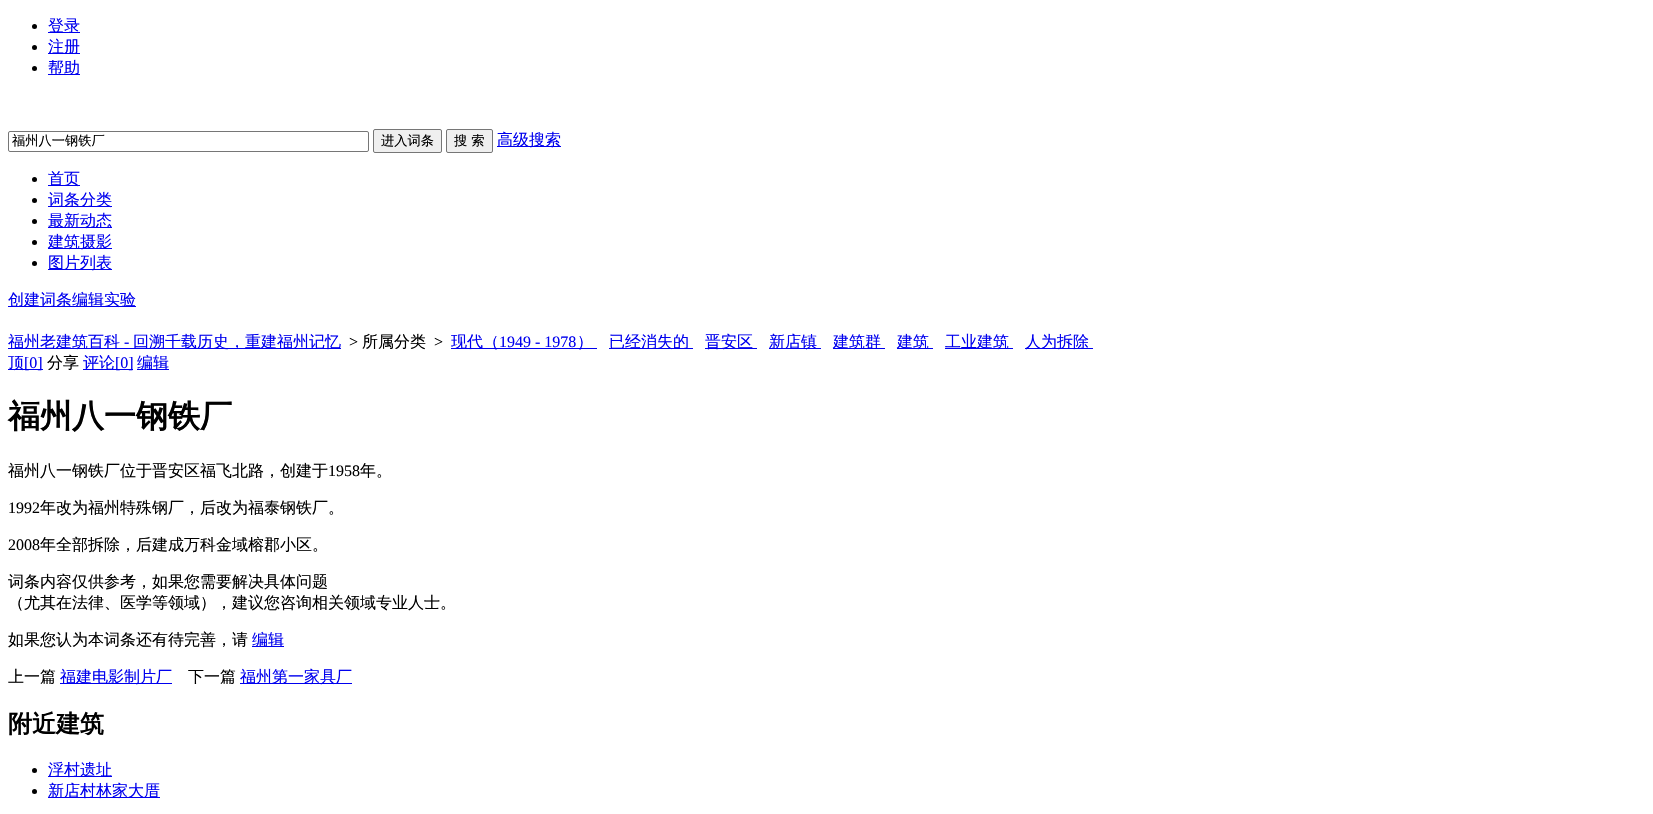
#include "include/core/SkBlurTypes.h"
#include "include/core/SkCanvas.h"
#include "include/core/SkData.h"
#include "include/core/SkFont.h"
#include "include/core/SkFontMgr.h"
#include "include/core/SkImage.h"
#include "include/core/SkMaskFilter.h"
#include "include/core/SkPaint.h"
#include "include/core/SkPathBuilder.h"
#include "include/core/SkTextBlob.h"
#include "include/effects/SkDashPathEffect.h"
#include "include/effects/SkGradientShader.h"
#include "include/utils/SkParsePath.h"

extern sk_sp<SkFontMgr> fontMgr;

void draw(SkCanvas* canvas) {
    SkPaint p;
    p.setAntiAlias(true);
    auto font = [&](const char* family, int weight, float size, bool italic = false) {
        SkFontStyle style(weight, SkFontStyle::kNormal_Width,
            italic ? SkFontStyle::kItalic_Slant : SkFontStyle::kUpright_Slant);
        SkFont result(fontMgr->matchFamilyStyle(family, style), size);
        result.setSubpixel(true);
        return result;
    };
    canvas->clear(0xFFFFFFFF);
    p.setColor(0xFF000000);
    canvas->drawCircle(34.5f, 26.5f, 2.5f, p);
    p.setColor(0xFF0000EE);
    canvas->drawRect(SkRect::MakeLTRB(48, 32, 80, 33), p);
    auto font1 = font("WenQuanYi Zen Hei", 500, 16);
    canvas->drawString("登录", 48, 31, font1, p);
    p.setColor(0xFF000000);
    canvas->drawCircle(34.5f, 47.5f, 2.5f, p);
    p.setColor(0xFF0000EE);
    canvas->drawRect(SkRect::MakeLTRB(48, 53, 80, 54), p);
    canvas->drawString("注册", 48, 52, font1, p);
    p.setColor(0xFF000000);
    canvas->drawCircle(34.5f, 68.5f, 2.5f, p);
    p.setColor(0xFF0000EE);
    canvas->drawRect(SkRect::MakeLTRB(48, 74, 80, 75), p);
    canvas->drawString("帮助", 48, 73, font1, p);
    p.setStyle(SkPaint::kStroke_Style);
    p.setStrokeWidth(1);
    p.setColor(0xFF767676);
    canvas->drawRoundRect(SkRect::MakeLTRB(8.5f, 131.5f, 368.5f, 151.5f), 1.5f, 1.5f, p);
    auto font2 = font("WenQuanYi Zen Hei", 500, 13.25f);
    p.setStyle(SkPaint::kFill_Style);
    p.setColor(0xFF000000);
    canvas->drawString("福州八一钢铁厂", 12, 145, font2, p);
    p.setColor(0xFFEFEFEF);
    canvas->drawRoundRect(SkRect::MakeLTRB(373.5f, 129.5f, 441.5f, 152.5f), 1.5f, 1.5f, p);
    p.setStyle(SkPaint::kStroke_Style);
    p.setColor(0xFF767676);
    canvas->drawRoundRect(SkRect::MakeLTRB(373.5f, 129.5f, 441.5f, 152.5f), 1.5f, 1.5f, p);
    p.setStyle(SkPaint::kFill_Style);
    p.setColor(0xFF000000);
    canvas->drawString("进入词条", 381, 145, font2, p);
    p.setColor(0xFFEFEFEF);
    canvas->drawRoundRect(SkRect::MakeLTRB(446.5f, 129.5f, 492.5f, 152.5f), 1.5f, 1.5f, p);
    p.setStyle(SkPaint::kStroke_Style);
    p.setColor(0xFF767676);
    canvas->drawRoundRect(SkRect::MakeLTRB(446.5f, 129.5f, 492.5f, 152.5f), 1.5f, 1.5f, p);
    p.setStyle(SkPaint::kFill_Style);
    p.setColor(0xFF000000);
    canvas->drawString("搜 索", 454, 145, font2, p);
    p.setColor(0xFF0000EE);
    canvas->drawRect(SkRect::MakeLTRB(497, 146, 561, 147), p);
    canvas->drawString("高级搜索", 497, 145, font1, p);
    p.setColor(0xFF000000);
    canvas->drawCircle(34.5f, 179.5f, 2.5f, p);
    p.setColor(0xFF0000EE);
    canvas->drawRect(SkRect::MakeLTRB(48, 185, 80, 186), p);
    canvas->drawString("首页", 48, 184, font1, p);
    p.setColor(0xFF000000);
    canvas->drawCircle(34.5f, 200.5f, 2.5f, p);
    p.setColor(0xFF0000EE);
    canvas->drawRect(SkRect::MakeLTRB(48, 206, 112, 207), p);
    canvas->drawString("词条分类", 48, 205, font1, p);
    p.setColor(0xFF000000);
    canvas->drawCircle(34.5f, 221.5f, 2.5f, p);
    p.setColor(0xFF0000EE);
    canvas->drawRect(SkRect::MakeLTRB(48, 227, 112, 228), p);
    canvas->drawString("最新动态", 48, 226, font1, p);
    p.setColor(0xFF000000);
    canvas->drawCircle(34.5f, 242.5f, 2.5f, p);
    p.setColor(0xFF0000EE);
    canvas->drawRect(SkRect::MakeLTRB(48, 248, 112, 249), p);
    canvas->drawString("建筑摄影", 48, 247, font1, p);
    p.setColor(0xFF000000);
    canvas->drawCircle(34.5f, 263.5f, 2.5f, p);
    p.setColor(0xFF0000EE);
    canvas->drawRect(SkRect::MakeLTRB(48, 269, 112, 270), p);
    canvas->drawString("图片列表", 48, 268, font1, p);
    canvas->drawRect(SkRect::MakeLTRB(8, 306, 136, 307), p);
    canvas->drawString("创建词条编辑实验", 8, 305, font1, p);
    canvas->drawRect(SkRect::MakeLTRB(8, 348, 341, 349), p);
    canvas->drawString("福州老建筑百科", 8, 347, font1, p);
    auto font3 = font("Liberation Serif", 400, 16);
    canvas->drawString("-", 124, 347, font3, p);
    canvas->drawString("回溯千载历史，重建福州记忆", 133, 347, font1, p);
    p.setColor(0xFF000000);
    canvas->drawString(">", 349, 347, font3, p);
    canvas->drawString("所属分类", 362, 347, font1, p);
    canvas->drawString(">", 434, 347, font3, p);
    p.setColor(0xFF0000EE);
    canvas->drawRect(SkRect::MakeLTRB(451, 348, 597, 349), p);
    canvas->drawString("现代（", 451, 347, font1, p);
    canvas->drawString("1949 - 1978", 499, 347, font3, p);
    canvas->drawString("）", 577, 347, font1, p);
    canvas->drawRect(SkRect::MakeLTRB(609, 348, 693, 349), p);
    canvas->drawString("已经消失的", 609, 347, font1, p);
    canvas->drawRect(SkRect::MakeLTRB(705, 348, 757, 349), p);
    canvas->drawString("晋安区", 705, 347, font1, p);
    canvas->drawRect(SkRect::MakeLTRB(769, 348, 821, 349), p);
    canvas->drawString("新店镇", 769, 347, font1, p);
    canvas->drawRect(SkRect::MakeLTRB(833, 348, 885, 349), p);
    canvas->drawString("建筑群", 833, 347, font1, p);
    canvas->drawRect(SkRect::MakeLTRB(897, 348, 933, 349), p);
    canvas->drawString("建筑", 897, 347, font1, p);
    canvas->drawRect(SkRect::MakeLTRB(945, 348, 1013, 349), p);
    canvas->drawString("工业建筑", 945, 347, font1, p);
    canvas->drawRect(SkRect::MakeLTRB(1025, 348, 1093, 349), p);
    canvas->drawString("人为拆除", 1025, 347, font1, p);
    canvas->drawRect(SkRect::MakeLTRB(8, 369, 43, 370), p);
    canvas->drawString("顶", 8, 368, font1, p);
    canvas->drawString("[0]", 24, 368, font3, p);
    p.setColor(0xFF000000);
    canvas->drawString("分享", 47, 368, font1, p);
    p.setColor(0xFF0000EE);
    canvas->drawRect(SkRect::MakeLTRB(83, 369, 133, 370), p);
    canvas->drawString("评论", 83, 368, font1, p);
    canvas->drawString("[0]", 115, 368, font3, p);
    canvas->drawRect(SkRect::MakeLTRB(137, 369, 169, 370), p);
    canvas->drawString("编辑", 137, 368, font1, p);
    auto font4 = font("WenQuanYi Zen Hei", 700, 32);
    p.setColor(0xFF000000);
    canvas->drawString("福州八一钢铁厂", 8, 427, font4, p);
    canvas->drawString("福州八一钢铁厂位于晋安区福飞北路，创建于", 8, 476, font1, p);
    canvas->drawString("1958", 328, 476, font3, p);
    canvas->drawString("年。", 360, 476, font1, p);
    canvas->drawString("1992", 8, 513, font3, p);
    canvas->drawString("年改为福州特殊钢厂，后改为福泰钢铁厂。", 40, 513, font1, p);
    canvas->drawString("2008", 8, 550, font3, p);
    {
        const struct { const char* s; float x, y; } items[] = {
            {"年全部拆除，后建成万科金域榕郡小区。", 40, 550},
            {"词条内容仅供参考，如果您需要解决具体问题", 8, 587},
            {"（尤其在法律、医学等领域），建议您咨询相关领域专业人士。", 8, 608},
            {"如果您认为本词条还有待完善，请", 8, 645},
        };
        for (auto [s, x, y] : items) {
            canvas->drawString(s, x, y, font1, p);
        }
    }
    p.setColor(0xFF0000EE);
    canvas->drawRect(SkRect::MakeLTRB(252, 646, 284, 647), p);
    canvas->drawString("编辑", 252, 645, font1, p);
    p.setColor(0xFF000000);
    canvas->drawString("上一篇", 8, 682, font1, p);
    p.setColor(0xFF0000EE);
    canvas->drawRect(SkRect::MakeLTRB(60, 683, 172, 684), p);
    canvas->drawString("福建电影制片厂", 60, 682, font1, p);
    p.setColor(0xFF000000);
    canvas->drawString("下一篇", 188, 682, font1, p);
    p.setColor(0xFF0000EE);
    canvas->drawRect(SkRect::MakeLTRB(240, 683, 352, 684), p);
    canvas->drawString("福州第一家具厂", 240, 682, font1, p);
    auto font5 = font("WenQuanYi Zen Hei", 700, 24);
    p.setColor(0xFF000000);
    canvas->drawString("附近建筑", 8, 732, font5, p);
    canvas->drawCircle(34.5f, 770.5f, 2.5f, p);
    p.setColor(0xFF0000EE);
    canvas->drawRect(SkRect::MakeLTRB(48, 776, 112, 777), p);
    canvas->drawString("浮村遗址", 48, 775, font1, p);
    p.setColor(0xFF000000);
    canvas->drawCircle(34.5f, 791.5f, 2.5f, p);
    p.setColor(0xFF0000EE);
    canvas->drawRect(SkRect::MakeLTRB(48, 797, 160, 798), p);
    canvas->drawString("新店村林家大厝", 48, 796, font1, p);
}
